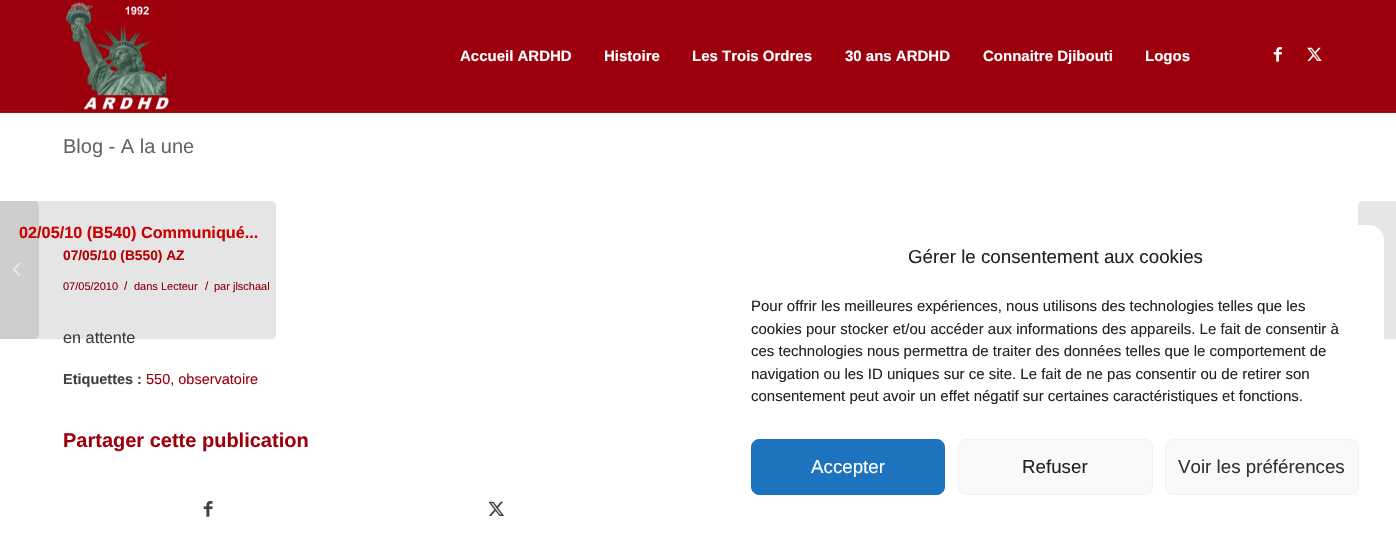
#include "include/core/SkBlurTypes.h"
#include "include/core/SkCanvas.h"
#include "include/core/SkData.h"
#include "include/core/SkFont.h"
#include "include/core/SkFontMgr.h"
#include "include/core/SkImage.h"
#include "include/core/SkMaskFilter.h"
#include "include/core/SkPaint.h"
#include "include/core/SkPathBuilder.h"
#include "include/core/SkTextBlob.h"
#include "include/effects/SkDashPathEffect.h"
#include "include/effects/SkGradientShader.h"
#include "include/utils/SkParsePath.h"

extern sk_sp<SkFontMgr> fontMgr;

void draw(SkCanvas* canvas) {
    SkPaint p;
    p.setAntiAlias(true);
    auto font = [&](const char* family, int weight, float size, bool italic = false) {
        SkFontStyle style(weight, SkFontStyle::kNormal_Width,
            italic ? SkFontStyle::kItalic_Slant : SkFontStyle::kUpright_Slant);
        SkFont result(fontMgr->matchFamilyStyle(family, style), size);
        result.setSubpixel(true);
        return result;
    };
    auto drawPhoto = [&](const char* path, float l, float t, float r, float b) {
        auto image = SkImages::DeferredFromEncodedData(SkData::MakeFromFileName(path));
        canvas->drawImageRect(image, SkRect::MakeLTRB(l, t, r, b), SkSamplingOptions());
    };
    canvas->clear(0xFF9C000D);
    p.setColor(0xFFA10D19);
    canvas->drawRect(SkRect::MakeLTRB(0, 110, 1396, 113), p);
    p.setColor(0xFF9C000D);
    canvas->drawRect(SkRect::MakeLTRB(0, 111, 1396, 112), p);
    drawPhoto("media/1.png", 62, 2, 170, 111);
    canvas->drawRect(SkRect::MakeLTRB(1238, 110, 1239, 111), p);
    auto font1 = font("Liberation Sans", 700, 15);
    p.setColor(0xFFFFFFFF);
    {
        const struct { const char* s; float x, y; } items[] = {
            {"Accueil ARDHD", 460, 61},
            {"Histoire", 604, 61},
            {"Les Trois Ordres", 692, 61},
            {"30 ans ARDHD", 845, 61},
            {"Connaitre Djibouti", 983, 61},
            {"Logos", 1145, 61},
        };
        for (auto [s, x, y] : items) {
            canvas->drawString(s, x, y, font1, p);
        }
    }
    drawPhoto("media/2.png", 1273, 47, 1282, 62);
    drawPhoto("media/3.png", 1307, 47, 1322, 61);
    canvas->drawRect(SkRect::MakeLTRB(0, 113, 1396, 538), p);
    p.setColor(0xFFE6E6E6);
    canvas->drawPath(SkPathBuilder().moveTo(0, 201).lineTo(34, 201).cubicTo(37, 201, 39, 203, 39, 206).lineTo(39, 334).cubicTo(39, 337, 37, 339, 34, 339).lineTo(0, 339).close().detach(), p);
    drawPhoto("media/4.png", 12, 262, 21, 277);
    auto font2 = font("Liberation Sans", 400, 20);
    p.setColor(0xFF666666);
    canvas->drawString("Blog - A la une", 63, 153, font2, p);
    auto font3 = font("Liberation Sans", 700, 13.75f);
    p.setColor(0xFFCC0000);
    canvas->drawString("07/05/10 (B550) AZ", 63, 260, font3, p);
    auto font4 = font("Liberation Sans", 400, 11);
    p.setColor(0xFF9C000D);
    canvas->drawString("07/05/2010", 63, 290, font4, p);
    auto font5 = font("Liberation Sans", 400, 12);
    canvas->drawString("/", 124, 290, font5, p);
    canvas->drawString("dans Lecteur", 134, 290, font4, p);
    canvas->drawString("/", 205, 290, font5, p);
    canvas->drawString("par jlschaal", 214, 290, font4, p);
    auto font6 = font("Liberation Sans", 400, 16.25f);
    p.setColor(0xFF424040);
    canvas->drawString("en attente", 63, 343, font6, p);
    auto font7 = font("Liberation Sans", 700, 14.5f);
    canvas->drawString("Etiquettes :", 63, 384, font7, p);
    auto font8 = font("Liberation Sans", 400, 14.5f);
    p.setColor(0xFF9C000D);
    canvas->drawString("550, observatoire", 146, 384, font8, p);
    auto font9 = font("Liberation Sans", 700, 20);
    canvas->drawString("Partager cette publication", 63, 447, font9, p);
    drawPhoto("media/5.png", 203, 501, 213, 517);
    drawPhoto("media/6.png", 488, 501, 504, 516);
    p.setColor(0x1A000000);
    canvas->drawPath(SkPathBuilder().moveTo(0, 201).lineTo(271, 201).cubicTo(274, 201, 276, 203, 276, 206).lineTo(276, 334).cubicTo(276, 337, 274, 339, 271, 339).lineTo(0, 339).close().detach(), p);
    auto font10 = font("Liberation Sans", 700, 16.25f);
    p.setColor(0xFFCC0000);
    canvas->drawString("02/05/10 (B540) Communiqué...", 19, 238, font10, p);
    p.setColor(0xFFE6E6E6);
    canvas->drawPath(SkPathBuilder().moveTo(1363, 201).lineTo(1396, 201).lineTo(1396, 339).lineTo(1363, 339).cubicTo(1360, 339, 1358, 337, 1358, 334).lineTo(1358, 206).cubicTo(1358, 203, 1360, 201, 1363, 201).close().detach(), p);
    p.setColor(0xFFFFFFFF);
    canvas->drawRoundRect(SkRect::MakeLTRB(726, 225, 1384, 526), 15, 15, p);
    auto font11 = font("Liberation Sans", 400, 18.75f);
    p.setColor(0xFF222222);
    canvas->drawString("Gérer le consentement aux cookies", 908, 263, font11, p);
    auto font12 = font("Liberation Sans", 400, 15);
    {
        const struct { const char* s; float x, y; } items[] = {
            {"Pour offrir les meilleures expériences, nous utilisons des technologies telles que les", 751, 311},
            {"cookies pour stocker et/ou accéder aux informations des appareils. Le fait de consentir à", 751, 334},
            {"ces technologies nous permettra de traiter des données telles que le comportement de", 751, 356},
            {"navigation ou les ID uniques sur ce site. Le fait de ne pas consentir ou de retirer son", 751, 379},
            {"consentement peut avoir un effet négatif sur certaines caractéristiques et fonctions.", 751, 401},
        };
        for (auto [s, x, y] : items) {
            canvas->drawString(s, x, y, font12, p);
        }
    }
    p.setColor(0xFF1E73BE);
    canvas->drawRoundRect(SkRect::MakeLTRB(751.5f, 439.5f, 944.5f, 494.5f), 7.5f, 7.5f, p);
    p.setStyle(SkPaint::kStroke_Style);
    p.setStrokeWidth(1);
    canvas->drawRoundRect(SkRect::MakeLTRB(751.5f, 439.5f, 944.5f, 494.5f), 7.5f, 7.5f, p);
    p.setStyle(SkPaint::kFill_Style);
    p.setColor(0xFFFFFFFF);
    canvas->drawString("Accepter", 811, 473, font11, p);
    p.setColor(0xFFF9F9F9);
    canvas->drawRoundRect(SkRect::MakeLTRB(958.5f, 439.5f, 1152.5f, 494.5f), 7.5f, 7.5f, p);
    p.setStyle(SkPaint::kStroke_Style);
    p.setColor(0xFFF2F2F2);
    canvas->drawRoundRect(SkRect::MakeLTRB(958.5f, 439.5f, 1152.5f, 494.5f), 7.5f, 7.5f, p);
    p.setStyle(SkPaint::kFill_Style);
    p.setColor(0xFF222222);
    canvas->drawString("Refuser", 1022, 473, font11, p);
    p.setColor(0xFFF9F9F9);
    canvas->drawRoundRect(SkRect::MakeLTRB(1165.5f, 439.5f, 1358.5f, 494.5f), 7.5f, 7.5f, p);
    p.setStyle(SkPaint::kStroke_Style);
    p.setColor(0xFFF2F2F2);
    canvas->drawRoundRect(SkRect::MakeLTRB(1165.5f, 439.5f, 1358.5f, 494.5f), 7.5f, 7.5f, p);
    p.setStyle(SkPaint::kFill_Style);
    p.setColor(0xFF333333);
    canvas->drawString("Voir les préférences", 1178, 473, font11, p);
}
